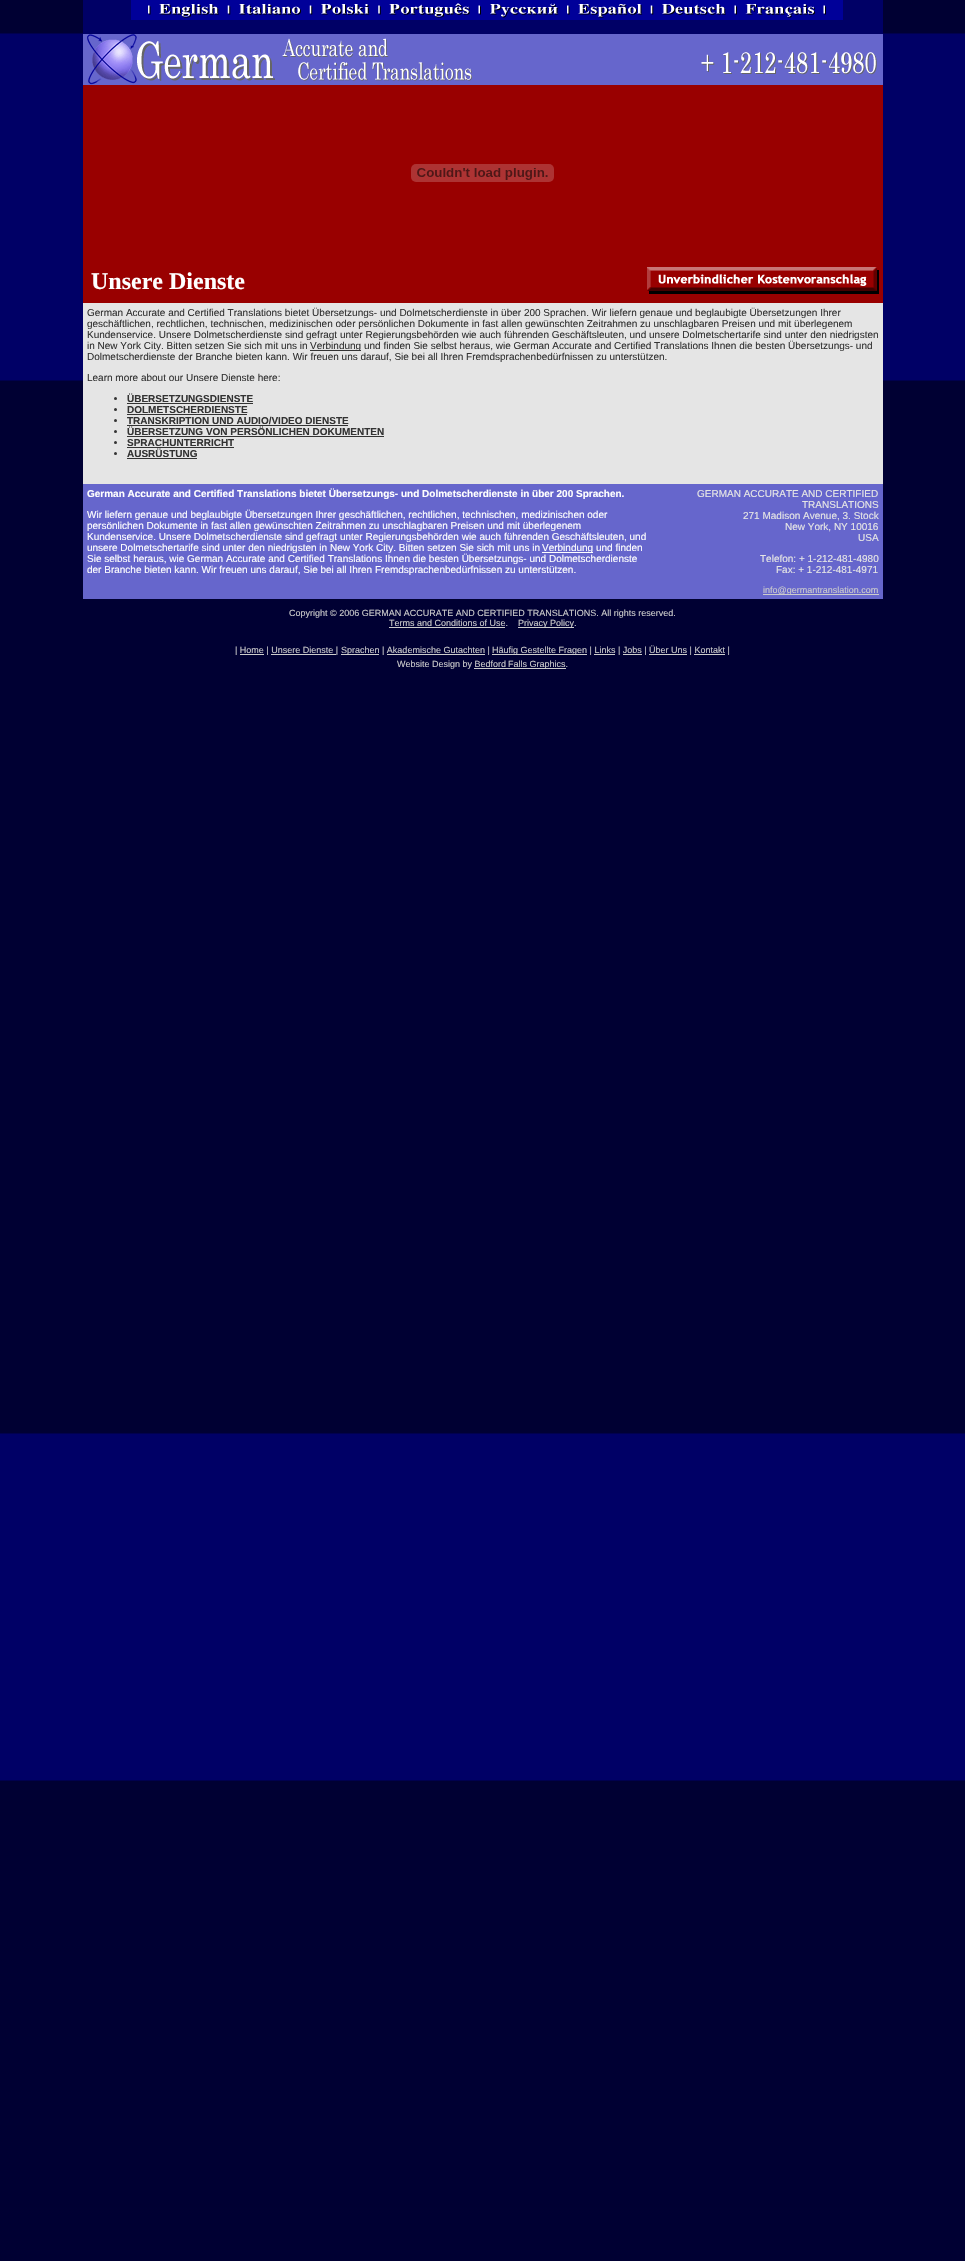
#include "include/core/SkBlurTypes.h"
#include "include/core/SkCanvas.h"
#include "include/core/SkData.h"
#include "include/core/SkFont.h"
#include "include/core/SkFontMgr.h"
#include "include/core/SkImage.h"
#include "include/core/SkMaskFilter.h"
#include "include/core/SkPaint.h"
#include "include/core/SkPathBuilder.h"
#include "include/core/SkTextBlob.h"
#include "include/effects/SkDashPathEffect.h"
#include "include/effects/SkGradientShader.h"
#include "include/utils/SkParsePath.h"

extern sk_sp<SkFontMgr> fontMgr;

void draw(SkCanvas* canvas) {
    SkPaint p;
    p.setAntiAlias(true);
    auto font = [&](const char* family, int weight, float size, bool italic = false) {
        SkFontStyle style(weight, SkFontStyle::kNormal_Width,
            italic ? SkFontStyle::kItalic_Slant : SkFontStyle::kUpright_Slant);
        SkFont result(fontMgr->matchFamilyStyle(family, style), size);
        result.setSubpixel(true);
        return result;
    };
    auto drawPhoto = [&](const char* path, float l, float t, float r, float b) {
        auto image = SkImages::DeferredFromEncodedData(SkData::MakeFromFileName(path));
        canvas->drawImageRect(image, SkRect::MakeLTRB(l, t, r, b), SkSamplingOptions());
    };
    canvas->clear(0xFFFFFFFF);
    drawPhoto("media/1.png", 0, 0, 965, 2261);
    p.setColor(0xFF000066);
    canvas->drawRect(SkRect::MakeLTRB(83, 0, 131, 34), p);
    drawPhoto("media/2.png", 131, 0, 152, 20);
    drawPhoto("media/3.png", 152, 0, 226, 20);
    drawPhoto("media/4.png", 226, 0, 232, 20);
    drawPhoto("media/5.png", 232, 0, 308, 20);
    drawPhoto("media/4.png", 308, 0, 314, 20);
    drawPhoto("media/6.png", 314, 0, 376, 20);
    drawPhoto("media/7.png", 376, 0, 382, 20);
    drawPhoto("media/8.png", 382, 0, 476, 20);
    drawPhoto("media/9.png", 476, 0, 482, 20);
    drawPhoto("media/10.png", 482, 0, 565, 20);
    drawPhoto("media/11.png", 565, 0, 571, 20);
    drawPhoto("media/12.png", 571, 0, 649, 20);
    drawPhoto("media/13.png", 649, 0, 654, 20);
    drawPhoto("media/14.png", 654, 0, 733, 20);
    drawPhoto("media/15.png", 733, 0, 738, 20);
    drawPhoto("media/16.png", 738, 0, 822, 20);
    drawPhoto("media/17.png", 822, 0, 843, 20);
    {
        const struct { float l, t, r, b; SkColor color; } items[] = {
            {843, 0, 883, 34, 0xFF000066},
            {131, 20, 843, 34, 0xFF000066},
            {83, 34, 87, 85, 0xFF6666CC},
        };
        for (auto [l, t, r, b, color] : items) {
            p.setColor(color);
            canvas->drawRect(SkRect::MakeLTRB(l, t, r, b), p);
        }
    }
    drawPhoto("media/18.png", 87, 34, 314, 85);
    canvas->drawRect(SkRect::MakeLTRB(314, 34, 883, 85), p);
    drawPhoto("media/19.png", 314, 38, 472, 81);
    drawPhoto("media/20.png", 701, 52, 877, 75);
    p.setColor(0xFF990000);
    canvas->drawRect(SkRect::MakeLTRB(83, 85, 883, 303), p);
    drawPhoto("media/21.png", 411, 164, 554, 182);
    auto font1 = font("Liberation Serif", 700, 24);
    p.setColor(0xFFFFFFFF);
    canvas->drawString("Unsere Dienste", 91, 289, font1, p);
    drawPhoto("media/22.png", 647, 267, 879, 294);
    p.setColor(0xFFE5E5E5);
    canvas->drawRect(SkRect::MakeLTRB(83, 303, 883, 484), p);
    auto font2 = font("Liberation Sans", 400, 10);
    p.setColor(0xFF333333);
    {
        const struct { const char* s; float x, y; } items[] = {
            {"German Accurate and Certified Translations bietet Übersetzungs- und Dolmetscherdienste in über 200 Sprachen. Wir liefern genaue und beglaubigte Übersetzungen Ihrer", 87, 316},
            {"geschäftlichen, rechtlichen, technischen, medizinischen oder persönlichen Dokumente in fast allen gewünschten Zeitrahmen zu unschlagbaren Preisen und mit überlegenem", 87, 327},
            {"Kundenservice. Unsere Dolmetscherdienste sind gefragt unter Regierungsbehörden wie auch führenden Geschäftsleuten, und unsere Dolmetschertarife sind unter den niedrigsten", 87, 338},
            {"in New York City. Bitten setzen Sie sich mit uns in", 87, 349},
        };
        for (auto [s, x, y] : items) {
            canvas->drawString(s, x, y, font2, p);
        }
    }
    canvas->drawRect(SkRect::MakeLTRB(310, 350, 361, 351), p);
    {
        const struct { const char* s; float x, y; } items[] = {
            {"Verbindung und finden Sie selbst heraus, wie German Accurate and Certified Translations Ihnen die besten Übersetzungs- und", 310, 349},
            {"Dolmetscherdienste der Branche bieten kann. Wir freuen uns darauf, Sie bei all Ihren Fremdsprachenbedürfnissen zu unterstützen.", 87, 360},
            {"Learn more about our Unsere Dienste here:", 87, 381},
        };
        for (auto [s, x, y] : items) {
            canvas->drawString(s, x, y, font2, p);
        }
    }
    canvas->drawCircle(115.5f, 398.5f, 1.5f, p);
    auto font3 = font("Liberation Sans", 700, 10);
    canvas->drawString("ÜBERSETZUNGSDIENSTE", 127, 402, font3, p);
    canvas->drawRect(SkRect::MakeLTRB(127, 403, 253, 404), p);
    canvas->drawCircle(115.5f, 409.5f, 1.5f, p);
    canvas->drawString("DOLMETSCHERDIENSTE", 127, 413, font3, p);
    canvas->drawRect(SkRect::MakeLTRB(127, 414, 247, 415), p);
    canvas->drawCircle(115.5f, 420.5f, 1.5f, p);
    canvas->drawString("TRANSKRIPTION UND AUDIO/VIDEO DIENSTE", 127, 424, font3, p);
    canvas->drawRect(SkRect::MakeLTRB(127, 425, 348, 426), p);
    canvas->drawCircle(115.5f, 431.5f, 1.5f, p);
    canvas->drawString("ÜBERSETZUNG VON PERSÖNLICHEN DOKUMENTEN", 127, 435, font3, p);
    canvas->drawRect(SkRect::MakeLTRB(127, 436, 384, 437), p);
    canvas->drawCircle(115.5f, 442.5f, 1.5f, p);
    canvas->drawString("SPRACHUNTERRICHT", 127, 446, font3, p);
    canvas->drawRect(SkRect::MakeLTRB(127, 447, 234, 448), p);
    canvas->drawCircle(115.5f, 453.5f, 1.5f, p);
    canvas->drawString("AUSRÜSTUNG", 127, 457, font3, p);
    canvas->drawRect(SkRect::MakeLTRB(127, 458, 197, 459), p);
    p.setColor(0xFF6666CC);
    canvas->drawRect(SkRect::MakeLTRB(83, 484, 883, 599), p);
    p.setColor(0xFFFFFFFF);
    canvas->drawString("German Accurate and Certified Translations bietet Übersetzungs- und Dolmetscherdienste in über 200 Sprachen.", 87, 497, font3, p);
    {
        const struct { const char* s; float x, y; } items[] = {
            {"Wir liefern genaue und beglaubigte Übersetzungen Ihrer geschäftlichen, rechtlichen, technischen, medizinischen oder", 87, 518},
            {"persönlichen Dokumente in fast allen gewünschten Zeitrahmen zu unschlagbaren Preisen und mit überlegenem", 87, 529},
            {"Kundenservice. Unsere Dolmetscherdienste sind gefragt unter Regierungsbehörden wie auch führenden Geschäftsleuten, und", 87, 540},
            {"unsere Dolmetschertarife sind unter den niedrigsten in New York City. Bitten setzen Sie sich mit uns in", 87, 551},
        };
        for (auto [s, x, y] : items) {
            canvas->drawString(s, x, y, font2, p);
        }
    }
    canvas->drawRect(SkRect::MakeLTRB(542, 552, 593, 553), p);
    {
        const struct { const char* s; float x, y; } items[] = {
            {"Verbindung und finden", 542, 551},
            {"Sie selbst heraus, wie German Accurate and Certified Translations Ihnen die besten Übersetzungs- und Dolmetscherdienste", 87, 562},
            {"der Branche bieten kann. Wir freuen uns darauf, Sie bei all Ihren Fremdsprachenbedürfnissen zu unterstützen.", 87, 573},
        };
        for (auto [s, x, y] : items) {
            canvas->drawString(s, x, y, font2, p);
        }
    }
    p.setColor(0xFFE5E5E5);
    {
        const struct { const char* s; float x, y; } items[] = {
            {"GERMAN ACCURATE AND CERTIFIED", 697, 497},
            {"TRANSLATIONS", 802, 508},
            {"271 Madison Avenue, 3. Stock", 743, 519},
            {"New York, NY 10016", 785, 530},
            {"USA", 858, 541},
            {"Telefon: + 1-212-481-4980", 760, 562},
            {"Fax: + 1-212-481-4971", 776, 573},
        };
        for (auto [s, x, y] : items) {
            canvas->drawString(s, x, y, font2, p);
        }
    }
    p.setColor(0xFFCCCCCC);
    canvas->drawRect(SkRect::MakeLTRB(763, 594, 879, 595), p);
    auto font4 = font("Liberation Sans", 400, 9);
    {
        const struct { const char* s; float x, y; } items[] = {
            {"info@germantranslation.com", 763, 593},
            {"Copyright © 2006 GERMAN ACCURATE AND CERTIFIED TRANSLATIONS. All rights reserved.", 289, 616},
            {"Terms and Conditions of Use.", 389, 626},
        };
        for (auto [s, x, y] : items) {
            canvas->drawString(s, x, y, font4, p);
        }
    }
    canvas->drawRect(SkRect::MakeLTRB(389, 627, 505, 628), p);
    canvas->drawRect(SkRect::MakeLTRB(518, 627, 574, 628), p);
    canvas->drawString("Privacy Policy.", 518, 626, font4, p);
    canvas->drawString("| Home | Unsere Dienste |", 235, 653, font4, p);
    canvas->drawRect(SkRect::MakeLTRB(341, 654, 379, 655), p);
    canvas->drawString("Sprachen | Akademische Gutachten |", 341, 653, font4, p);
    canvas->drawRect(SkRect::MakeLTRB(492, 654, 587, 655), p);
    canvas->drawString("Häufig Gestellte Fragen | Links | Jobs | Über Uns | Kontakt |", 492, 653, font4, p);
    {
        const struct { float l, t, r, b; SkColor color; } items[] = {
            {240, 654, 264, 655, 0xFFCCCCCC},
            {271, 654, 336, 655, 0xFFCCCCCC},
            {387, 654, 485, 655, 0xFFCCCCCC},
            {594, 654, 615, 655, 0xFFCCCCCC},
            {623, 654, 642, 655, 0xFFCCCCCC},
            {649, 654, 687, 655, 0xFFCCCCCC},
            {694, 654, 725, 655, 0xFFCCCCCC},
        };
        for (auto [l, t, r, b, color] : items) {
            p.setColor(color);
            canvas->drawRect(SkRect::MakeLTRB(l, t, r, b), p);
        }
    }
    canvas->drawString("Website Design by Bedford", 397, 667, font4, p);
    canvas->drawRect(SkRect::MakeLTRB(474, 668, 566, 669), p);
    canvas->drawString("Falls Graphics.", 508, 667, font4, p);
}
